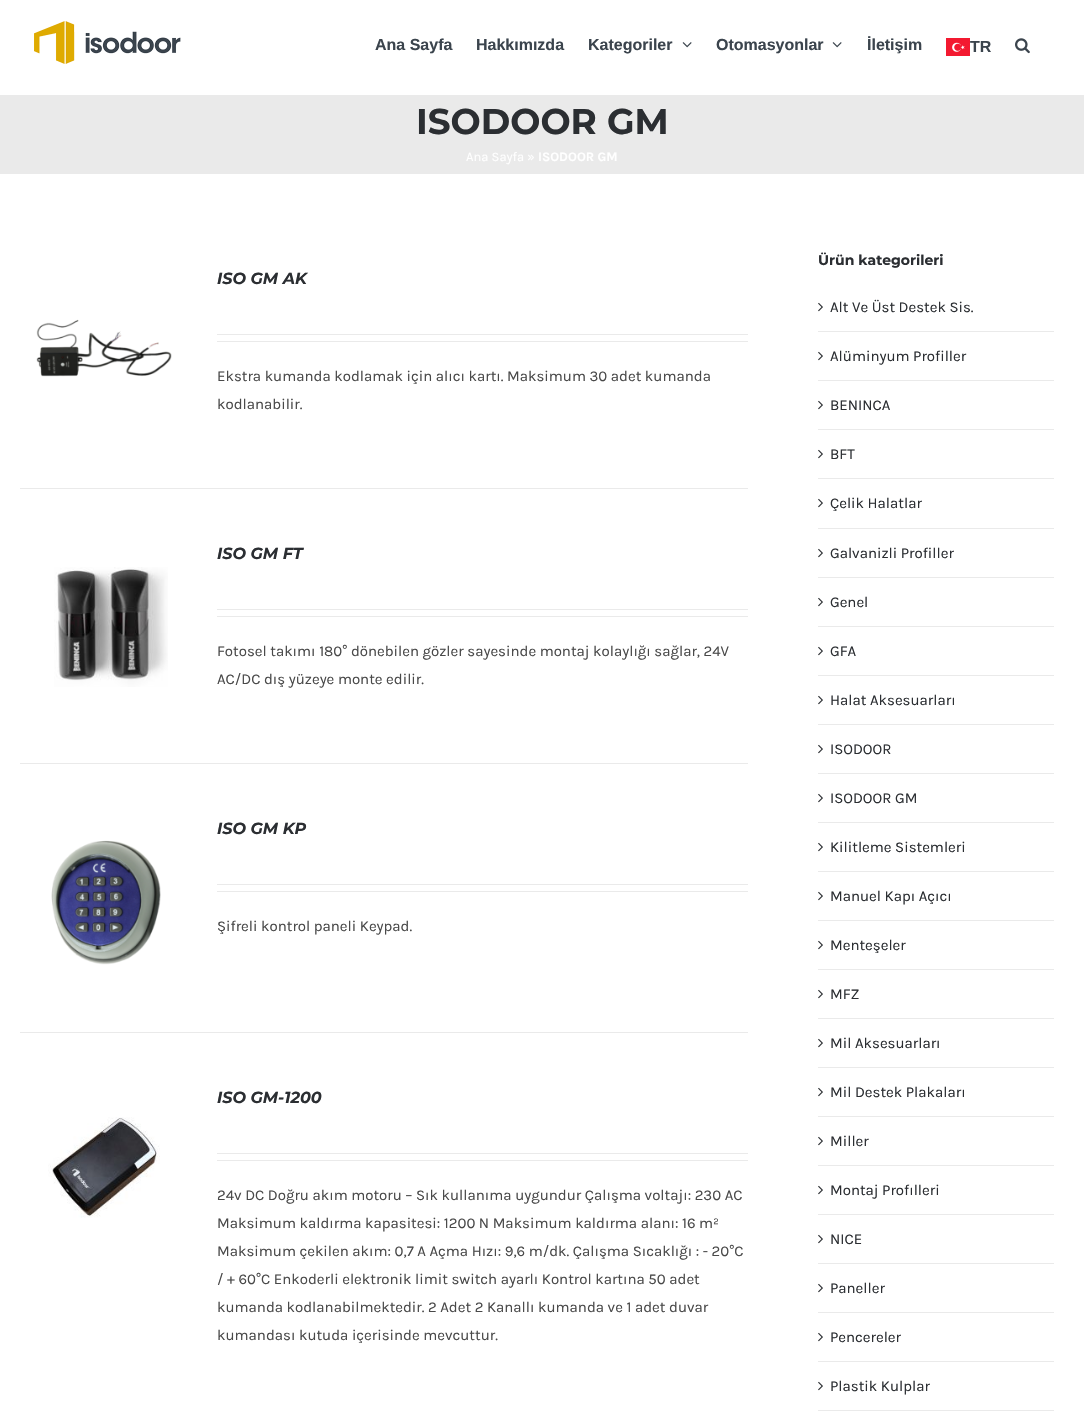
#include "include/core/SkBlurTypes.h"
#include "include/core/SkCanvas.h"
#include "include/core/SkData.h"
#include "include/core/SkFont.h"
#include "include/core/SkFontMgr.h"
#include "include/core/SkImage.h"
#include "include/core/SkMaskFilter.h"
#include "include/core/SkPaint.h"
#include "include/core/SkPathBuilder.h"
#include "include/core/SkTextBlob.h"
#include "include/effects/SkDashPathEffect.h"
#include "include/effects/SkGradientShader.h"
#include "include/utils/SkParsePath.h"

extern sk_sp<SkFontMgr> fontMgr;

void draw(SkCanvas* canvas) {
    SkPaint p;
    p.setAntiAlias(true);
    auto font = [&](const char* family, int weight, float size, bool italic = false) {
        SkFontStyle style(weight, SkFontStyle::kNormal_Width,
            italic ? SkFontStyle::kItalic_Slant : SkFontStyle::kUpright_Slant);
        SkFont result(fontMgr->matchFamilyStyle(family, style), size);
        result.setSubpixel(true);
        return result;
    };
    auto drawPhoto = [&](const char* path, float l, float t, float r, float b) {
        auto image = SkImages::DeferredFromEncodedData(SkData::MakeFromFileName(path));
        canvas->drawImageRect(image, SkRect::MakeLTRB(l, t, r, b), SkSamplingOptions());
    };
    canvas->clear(0xFFFFFFFF);
    drawPhoto("media/1.png", 34, 21, 181, 64);
    auto font1 = font("Liberation Sans", 700, 16);
    p.setColor(0xFF3B444D);
    {
        const struct { const char* s; float x, y; } items[] = {
            {"Ana Sayfa", 375, 50},
            {"Hakkımızda", 476, 50},
            {"Kategoriler", 588, 50},
        };
        for (auto [s, x, y] : items) {
            canvas->drawString(s, x, y, font1, p);
        }
    }
    drawPhoto("media/2.png", 682, 42, 692, 48);
    canvas->drawString("Otomasyonlar", 716, 50, font1, p);
    drawPhoto("media/2.png", 832, 42, 842, 48);
    canvas->drawString("İletişim", 867, 50, font1, p);
    drawPhoto("media/3.png", 946, 38, 970, 56);
    canvas->drawString("TR", 970, 52, font1, p);
    drawPhoto("media/4.png", 1015, 38, 1030, 54);
    p.setColor(0xFFEAEAEA);
    canvas->drawRect(SkRect::MakeLTRB(0, 95, 1084, 174), p);
    auto font2 = font("Montserrat", 100, 35.75f);
    p.setColor(0xFF2B2E32);
    canvas->drawString("ISODOOR GM", 416, 134, font2, p);
    auto font3 = font("Karla", 400, 13);
    p.setColor(0xFFFFFFFF);
    canvas->drawString("Ana Sayfa »", 466, 161, font3, p);
    auto font4 = font("Karla", 700, 13);
    canvas->drawString("ISODOOR GM", 538, 161, font4, p);
    p.setColor(0xFFEAEAEA);
    canvas->drawRect(SkRect::MakeLTRB(20, 488, 748, 489), p);
    auto font5 = font("Montserrat", 100, 16, true);
    p.setColor(0xFF2B2E32);
    canvas->drawString("ISO GM AK", 217, 284, font5, p);
    drawPhoto("media/5.png", 36, 319, 172, 377);
    p.setColor(0xFFEAEAEA);
    canvas->drawRect(SkRect::MakeLTRB(217, 334, 748, 335), p);
    canvas->drawRect(SkRect::MakeLTRB(217, 341, 748, 342), p);
    auto font6 = font("Karla", 400, 15);
    p.setColor(0xFF494949);
    canvas->drawString("Ekstra kumanda kodlamak için alıcı kartı. Maksimum 30 adet kumanda", 217, 381, font6, p);
    canvas->drawString("kodlanabilir.", 217, 409, font6, p);
    p.setColor(0xFFEAEAEA);
    canvas->drawRect(SkRect::MakeLTRB(20, 763, 748, 764), p);
    p.setColor(0xFF2B2E32);
    canvas->drawString("ISO GM FT", 217, 559, font5, p);
    drawPhoto("media/6.png", 54, 567, 168, 687);
    p.setColor(0xFFEAEAEA);
    canvas->drawRect(SkRect::MakeLTRB(217, 609, 748, 610), p);
    canvas->drawRect(SkRect::MakeLTRB(217, 616, 748, 617), p);
    p.setColor(0xFF494949);
    canvas->drawString("Fotosel takımı 180° dönebilen gözler sayesinde montaj kolaylığı sağlar, 24V", 217, 656, font6, p);
    canvas->drawString("AC/DC dış yüzeye monte edilir.", 217, 684, font6, p);
    p.setColor(0xFFEAEAEA);
    canvas->drawRect(SkRect::MakeLTRB(20, 1032, 748, 1033), p);
    p.setColor(0xFF2B2E32);
    canvas->drawString("ISO GM KP", 217, 834, font5, p);
    drawPhoto("media/7.png", 51, 840, 161, 965);
    p.setColor(0xFFEAEAEA);
    canvas->drawRect(SkRect::MakeLTRB(217, 884, 748, 885), p);
    canvas->drawRect(SkRect::MakeLTRB(217, 891, 748, 892), p);
    p.setColor(0xFF494949);
    canvas->drawString("Şifreli kontrol paneli Keypad.", 217, 931, font6, p);
    p.setColor(0xFF2B2E32);
    canvas->drawString("ISO GM-1200", 217, 1103, font5, p);
    drawPhoto("media/8.png", 48, 1117, 160, 1218);
    p.setColor(0xFFEAEAEA);
    canvas->drawRect(SkRect::MakeLTRB(217, 1153, 748, 1154), p);
    canvas->drawRect(SkRect::MakeLTRB(217, 1160, 748, 1161), p);
    p.setColor(0xFF494949);
    {
        const struct { const char* s; float x, y; } items[] = {
            {"24v DC Doğru akım motoru – Sık kullanıma uygundur Çalışma voltajı: 230 AC", 217, 1200},
            {"Maksimum kaldırma kapasitesi: 1200 N Maksimum kaldırma alanı: 16 m²", 217, 1228},
            {"Maksimum çekilen akım: 0,7 A Açma Hızı: 9,6 m/dk. Çalışma Sıcaklığı : - 20°C", 217, 1256},
            {"/ + 60°C Enkoderli elektronik limit switch ayarlı Kontrol kartına 50 adet", 217, 1284},
            {"kumanda kodlanabilmektedir. 2 Adet 2 Kanallı kumanda ve 1 adet duvar", 217, 1312},
            {"kumandası kutuda içerisinde mevcuttur.", 217, 1340},
        };
        for (auto [s, x, y] : items) {
            canvas->drawString(s, x, y, font6, p);
        }
    }
    auto font7 = font("Montserrat", 100, 14);
    p.setColor(0xFF2B2E32);
    canvas->drawString("Ürün kategorileri", 818, 265, font7, p);
    p.setColor(0xFFEAEAEA);
    canvas->drawRect(SkRect::MakeLTRB(818, 331, 1054, 332), p);
    drawPhoto("media/9.png", 818, 302, 823, 312);
    p.setColor(0xFF2B2E32);
    canvas->drawString("Alt Ve Üst Destek Sis.", 830, 312, font6, p);
    p.setColor(0xFFEAEAEA);
    canvas->drawRect(SkRect::MakeLTRB(818, 380, 1054, 381), p);
    drawPhoto("media/9.png", 818, 351, 823, 361);
    p.setColor(0xFF2B2E32);
    canvas->drawString("Alüminyum Profiller", 830, 361, font6, p);
    p.setColor(0xFFEAEAEA);
    canvas->drawRect(SkRect::MakeLTRB(818, 429, 1054, 430), p);
    drawPhoto("media/9.png", 818, 400, 823, 410);
    p.setColor(0xFF2B2E32);
    canvas->drawString("BENINCA", 830, 410, font6, p);
    p.setColor(0xFFEAEAEA);
    canvas->drawRect(SkRect::MakeLTRB(818, 478, 1054, 479), p);
    drawPhoto("media/9.png", 818, 449, 823, 459);
    p.setColor(0xFF2B2E32);
    canvas->drawString("BFT", 830, 459, font6, p);
    p.setColor(0xFFEAEAEA);
    canvas->drawRect(SkRect::MakeLTRB(818, 528, 1054, 529), p);
    drawPhoto("media/9.png", 818, 498, 823, 508);
    p.setColor(0xFF2B2E32);
    canvas->drawString("Çelik Halatlar", 830, 508, font6, p);
    p.setColor(0xFFEAEAEA);
    canvas->drawRect(SkRect::MakeLTRB(818, 577, 1054, 578), p);
    drawPhoto("media/9.png", 818, 548, 823, 558);
    p.setColor(0xFF2B2E32);
    canvas->drawString("Galvanizli Profiller", 830, 558, font6, p);
    p.setColor(0xFFEAEAEA);
    canvas->drawRect(SkRect::MakeLTRB(818, 626, 1054, 627), p);
    drawPhoto("media/9.png", 818, 597, 823, 607);
    p.setColor(0xFF2B2E32);
    canvas->drawString("Genel", 830, 607, font6, p);
    p.setColor(0xFFEAEAEA);
    canvas->drawRect(SkRect::MakeLTRB(818, 675, 1054, 676), p);
    drawPhoto("media/9.png", 818, 646, 823, 656);
    p.setColor(0xFF2B2E32);
    canvas->drawString("GFA", 830, 656, font6, p);
    p.setColor(0xFFEAEAEA);
    canvas->drawRect(SkRect::MakeLTRB(818, 724, 1054, 725), p);
    drawPhoto("media/9.png", 818, 695, 823, 705);
    p.setColor(0xFF2B2E32);
    canvas->drawString("Halat Aksesuarları", 830, 705, font6, p);
    p.setColor(0xFFEAEAEA);
    canvas->drawRect(SkRect::MakeLTRB(818, 773, 1054, 774), p);
    drawPhoto("media/9.png", 818, 744, 823, 754);
    p.setColor(0xFF2B2E32);
    canvas->drawString("ISODOOR", 830, 754, font6, p);
    p.setColor(0xFFEAEAEA);
    canvas->drawRect(SkRect::MakeLTRB(818, 822, 1054, 823), p);
    drawPhoto("media/9.png", 818, 793, 823, 803);
    p.setColor(0xFF2B2E32);
    canvas->drawString("ISODOOR GM", 830, 803, font6, p);
    p.setColor(0xFFEAEAEA);
    canvas->drawRect(SkRect::MakeLTRB(818, 871, 1054, 872), p);
    drawPhoto("media/9.png", 818, 842, 823, 852);
    p.setColor(0xFF2B2E32);
    canvas->drawString("Kilitleme Sistemleri", 830, 852, font6, p);
    p.setColor(0xFFEAEAEA);
    canvas->drawRect(SkRect::MakeLTRB(818, 920, 1054, 921), p);
    drawPhoto("media/9.png", 818, 891, 823, 901);
    p.setColor(0xFF2B2E32);
    canvas->drawString("Manuel Kapı Açıcı", 830, 901, font6, p);
    p.setColor(0xFFEAEAEA);
    canvas->drawRect(SkRect::MakeLTRB(818, 969, 1054, 970), p);
    drawPhoto("media/9.png", 818, 940, 823, 950);
    p.setColor(0xFF2B2E32);
    canvas->drawString("Menteşeler", 830, 950, font6, p);
    p.setColor(0xFFEAEAEA);
    canvas->drawRect(SkRect::MakeLTRB(818, 1018, 1054, 1019), p);
    drawPhoto("media/9.png", 818, 989, 823, 999);
    p.setColor(0xFF2B2E32);
    canvas->drawString("MFZ", 830, 999, font6, p);
    p.setColor(0xFFEAEAEA);
    canvas->drawRect(SkRect::MakeLTRB(818, 1067, 1054, 1068), p);
    drawPhoto("media/9.png", 818, 1038, 823, 1048);
    p.setColor(0xFF2B2E32);
    canvas->drawString("Mil Aksesuarları", 830, 1048, font6, p);
    p.setColor(0xFFEAEAEA);
    canvas->drawRect(SkRect::MakeLTRB(818, 1116, 1054, 1117), p);
    drawPhoto("media/9.png", 818, 1087, 823, 1097);
    p.setColor(0xFF2B2E32);
    canvas->drawString("Mil Destek Plakaları", 830, 1097, font6, p);
    p.setColor(0xFFEAEAEA);
    canvas->drawRect(SkRect::MakeLTRB(818, 1165, 1054, 1166), p);
    drawPhoto("media/9.png", 818, 1136, 823, 1146);
    p.setColor(0xFF2B2E32);
    canvas->drawString("Miller", 830, 1146, font6, p);
    p.setColor(0xFFEAEAEA);
    canvas->drawRect(SkRect::MakeLTRB(818, 1214, 1054, 1215), p);
    drawPhoto("media/9.png", 818, 1185, 823, 1195);
    p.setColor(0xFF2B2E32);
    canvas->drawString("Montaj Profılleri", 830, 1195, font6, p);
    p.setColor(0xFFEAEAEA);
    canvas->drawRect(SkRect::MakeLTRB(818, 1263, 1054, 1264), p);
    drawPhoto("media/9.png", 818, 1234, 823, 1244);
    p.setColor(0xFF2B2E32);
    canvas->drawString("NICE", 830, 1244, font6, p);
    p.setColor(0xFFEAEAEA);
    canvas->drawRect(SkRect::MakeLTRB(818, 1312, 1054, 1313), p);
    drawPhoto("media/9.png", 818, 1283, 823, 1293);
    p.setColor(0xFF2B2E32);
    canvas->drawString("Paneller", 830, 1293, font6, p);
    p.setColor(0xFFEAEAEA);
    canvas->drawRect(SkRect::MakeLTRB(818, 1361, 1054, 1362), p);
    drawPhoto("media/9.png", 818, 1332, 823, 1342);
    p.setColor(0xFF2B2E32);
    canvas->drawString("Pencereler", 830, 1342, font6, p);
    p.setColor(0xFFEAEAEA);
    canvas->drawRect(SkRect::MakeLTRB(818, 1410, 1054, 1411), p);
    drawPhoto("media/9.png", 818, 1381, 823, 1391);
    p.setColor(0xFF2B2E32);
    canvas->drawString("Plastik Kulplar", 830, 1391, font6, p);
}
